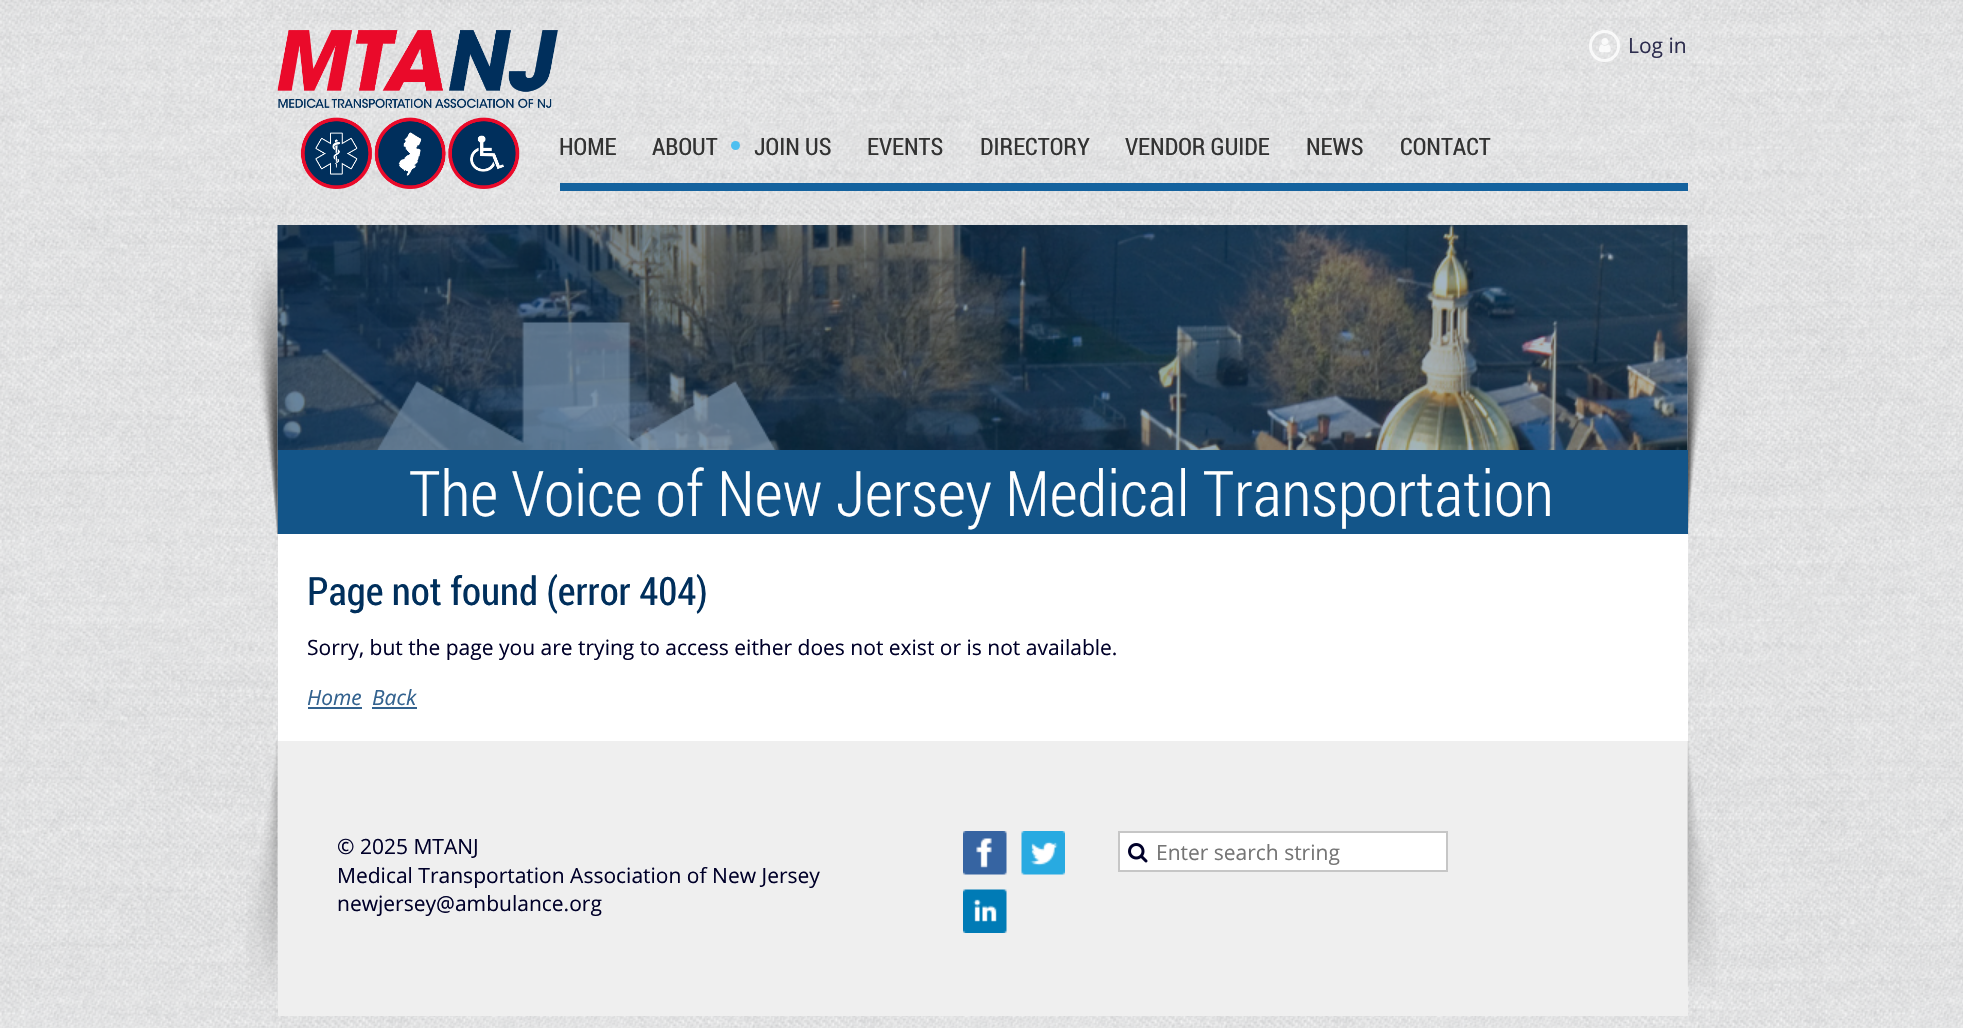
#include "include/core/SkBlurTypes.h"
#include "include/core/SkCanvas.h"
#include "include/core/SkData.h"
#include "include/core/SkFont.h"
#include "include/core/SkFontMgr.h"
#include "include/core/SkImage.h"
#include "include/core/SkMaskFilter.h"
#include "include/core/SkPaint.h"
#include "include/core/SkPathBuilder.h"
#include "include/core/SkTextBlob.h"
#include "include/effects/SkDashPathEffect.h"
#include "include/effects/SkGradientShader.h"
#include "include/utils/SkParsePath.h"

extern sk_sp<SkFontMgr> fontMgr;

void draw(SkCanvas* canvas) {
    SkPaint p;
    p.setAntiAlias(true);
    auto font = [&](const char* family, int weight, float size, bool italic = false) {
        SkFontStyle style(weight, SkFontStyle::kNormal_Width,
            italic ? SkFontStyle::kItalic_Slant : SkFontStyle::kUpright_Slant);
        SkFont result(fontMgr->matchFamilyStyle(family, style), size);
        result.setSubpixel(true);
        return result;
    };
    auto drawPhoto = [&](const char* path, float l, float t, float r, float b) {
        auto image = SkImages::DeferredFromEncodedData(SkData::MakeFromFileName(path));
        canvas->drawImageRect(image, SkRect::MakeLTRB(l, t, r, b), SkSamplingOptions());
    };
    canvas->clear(0xFFFFFFFF);
    drawPhoto("media/1.png", 0, 0, 1963, 1028);
    drawPhoto("media/2.png", 277, 30, 558, 189);
    p.setStyle(SkPaint::kStroke_Style);
    p.setStrokeWidth(3);
    p.setColor(0xCCFFFFFF);
    canvas->drawRoundRect(SkRect::MakeLTRB(1590.5f, 31.5f, 1618.5f, 60.5f), 14, 14, p);
    drawPhoto("media/3.png", 1599, 38, 1611, 53);
    auto font1 = font("Open Sans", 400, 21);
    p.setStyle(SkPaint::kFill_Style);
    p.setColor(0xFF2D2D4E);
    canvas->drawString("Log in", 1628, 53, font1, p);
    p.setColor(0xFF14629E);
    canvas->drawRect(SkRect::MakeLTRB(560, 183, 1688, 191), p);
    auto font2 = font("Roboto Condensed", 400, 24);
    p.setColor(0xFF333333);
    canvas->drawString("HOME", 559, 155, font2, p);
    canvas->drawString("ABOUT", 652, 155, font2, p);
    p.setColor(0xFF4DBFF0);
    canvas->drawCircle(735.5f, 145.5f, 4.5f, p);
    p.setColor(0xFF333333);
    {
        const struct { const char* s; float x, y; } items[] = {
            {"JOIN US", 754, 155},
            {"EVENTS", 867, 155},
            {"DIRECTORY", 980, 155},
            {"VENDOR GUIDE", 1125, 155},
            {"NEWS", 1306, 155},
            {"CONTACT", 1400, 155},
        };
        for (auto [s, x, y] : items) {
            canvas->drawString(s, x, y, font2, p);
        }
    }
    drawPhoto("media/4.png", 252, 254, 278, 534);
    drawPhoto("media/6.png", 1687, 254, 1716, 534);
    drawPhoto("media/5.png", 277, 225, 1688, 534);
    p.setColor(0xFF135589);
    canvas->drawRect(SkRect::MakeLTRB(278, 450, 1688, 534), p);
    auto font3 = font("Roboto Condensed", 300, 63);
    p.setColor(0xFFFFFFFF);
    canvas->drawString("The Voice of New Jersey Medical Transportation", 409, 516, font3, p);
    canvas->drawRect(SkRect::MakeLTRB(278, 534, 1688, 741), p);
    auto font4 = font("Roboto Condensed", 400, 39);
    p.setColor(0xFF002F5C);
    canvas->drawString("Page not found (error 404)", 307, 605, font4, p);
    p.setColor(0xFF000029);
    canvas->drawString("Sorry, but the page you are trying to access either does not exist or is not available.", 307, 655, font1, p);
    auto font5 = font("Open Sans", 400, 21, true);
    p.setColor(0xFF33628F);
    canvas->drawString("Home", 307, 705, font5, p);
    canvas->drawRect(SkRect::MakeLTRB(308, 707, 362, 709), p);
    canvas->drawString("Back", 372, 705, font5, p);
    canvas->drawRect(SkRect::MakeLTRB(372, 707, 417, 709), p);
    p.setColor(0xFFEFEFEF);
    canvas->drawRect(SkRect::MakeLTRB(278, 741, 1688, 1016), p);
    drawPhoto("media/7.png", 246, 741, 278, 992);
    canvas->save();
    canvas->clipRect(SkRect::MakeLTRB(338, 831, 948, 918));
    p.setColor(0xFF000029);
    canvas->drawString("© 2025 MTANJ", 337, 854, font1, p);
    canvas->restore();
    canvas->drawString("Medical Transportation Association of New Jersey", 337, 883, font1, p);
    canvas->drawString("newjersey@ambulance.org", 337, 911, font1, p);
    drawPhoto("media/8.png", 963, 831, 1007, 875);
    drawPhoto("media/9.png", 1021, 831, 1065, 875);
    drawPhoto("media/10.png", 963, 889, 1007, 933);
    p.setColor(0xFFFFFFFF);
    canvas->drawRect(SkRect::MakeLTRB(1119, 832, 1447, 871), p);
    p.setStyle(SkPaint::kStroke_Style);
    p.setStrokeWidth(2);
    p.setColor(0xFFC6C6C6);
    canvas->drawRect(SkRect::MakeLTRB(1119, 832, 1447, 871), p);
    drawPhoto("media/11.png", 1128, 843, 1148, 863);
    p.setStyle(SkPaint::kFill_Style);
    p.setColor(0xFF757575);
    canvas->drawString("Enter search string", 1156, 860, font1, p);
    drawPhoto("media/12.png", 1687, 741, 1716, 987);
}
